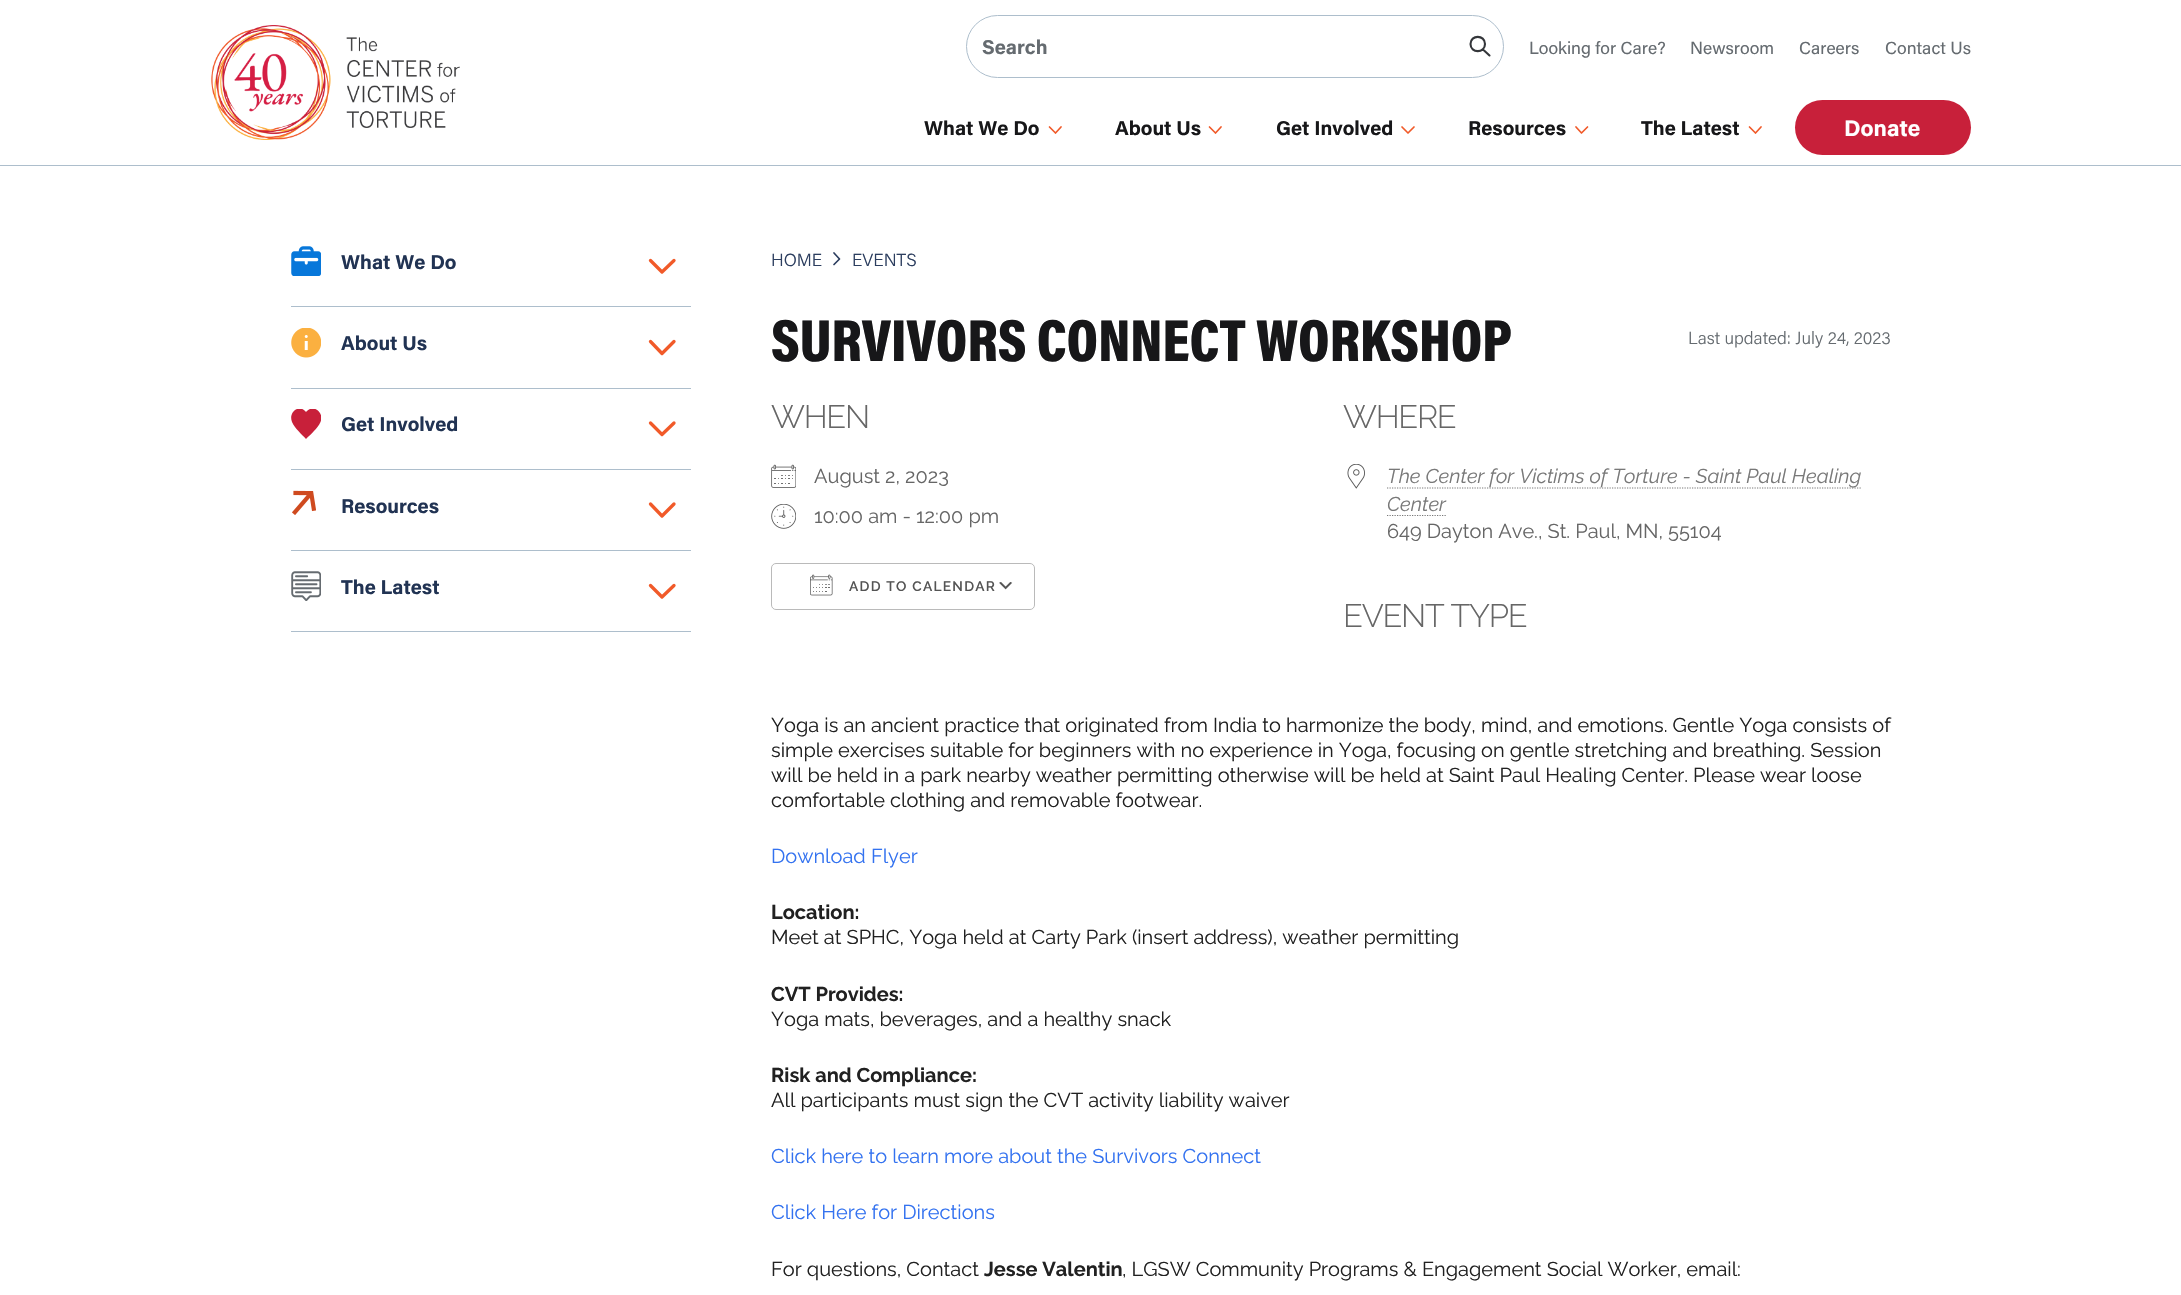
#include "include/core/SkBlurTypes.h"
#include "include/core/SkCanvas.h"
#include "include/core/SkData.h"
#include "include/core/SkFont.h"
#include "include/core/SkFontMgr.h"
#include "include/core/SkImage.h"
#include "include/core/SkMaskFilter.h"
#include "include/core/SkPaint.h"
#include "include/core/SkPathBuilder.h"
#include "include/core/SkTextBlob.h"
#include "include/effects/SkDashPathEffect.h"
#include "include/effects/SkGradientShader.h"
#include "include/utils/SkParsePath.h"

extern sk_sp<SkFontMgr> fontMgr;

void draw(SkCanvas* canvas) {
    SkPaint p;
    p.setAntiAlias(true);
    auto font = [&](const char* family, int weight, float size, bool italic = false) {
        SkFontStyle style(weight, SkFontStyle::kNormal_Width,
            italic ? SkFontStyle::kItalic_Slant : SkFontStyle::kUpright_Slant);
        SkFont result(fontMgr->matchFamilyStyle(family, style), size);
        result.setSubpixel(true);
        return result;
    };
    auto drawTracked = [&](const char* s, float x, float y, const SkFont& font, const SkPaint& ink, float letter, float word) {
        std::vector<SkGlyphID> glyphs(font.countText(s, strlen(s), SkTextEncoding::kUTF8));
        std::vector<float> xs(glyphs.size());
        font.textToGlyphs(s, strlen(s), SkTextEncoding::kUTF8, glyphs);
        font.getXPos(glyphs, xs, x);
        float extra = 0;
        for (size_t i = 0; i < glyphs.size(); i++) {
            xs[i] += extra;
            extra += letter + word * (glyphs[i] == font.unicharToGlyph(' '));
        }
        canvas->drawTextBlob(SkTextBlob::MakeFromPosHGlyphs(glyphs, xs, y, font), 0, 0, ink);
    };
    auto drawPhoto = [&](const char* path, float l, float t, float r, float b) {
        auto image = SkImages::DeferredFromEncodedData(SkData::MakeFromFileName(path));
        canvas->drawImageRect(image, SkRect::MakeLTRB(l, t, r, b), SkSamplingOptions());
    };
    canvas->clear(0xFFFFFFFF);
    p.setColor(0xFFADBECC);
    canvas->drawRect(SkRect::MakeLTRB(0, 165, 2181, 166), p);
    drawPhoto("media/1.png", 211, 25, 460, 140);
    p.setStyle(SkPaint::kStroke_Style);
    p.setStrokeWidth(1);
    canvas->drawRoundRect(SkRect::MakeLTRB(966.5f, 15.5f, 1503.5f, 77.5f), 31, 31, p);
    auto font1 = font("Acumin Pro", 700, 20);
    p.setStyle(SkPaint::kFill_Style);
    p.setColor(0xFF656B70);
    canvas->drawString("Search", 982, 54, font1, p);
    p.setStyle(SkPaint::kStroke_Style);
    p.setStrokeWidth(2.1f);
    p.setStrokeCap(SkPaint::kRound_Cap);
    p.setStrokeJoin(SkPaint::kRound_Join);
    p.setColor(0xFF34363A);
    canvas->drawPath(SkPathBuilder().moveTo(1489.5f, 55.5f).lineTo(1483, 49.5f).moveTo(1485, 44).cubicTo(1485, 53.5f, 1470.5f, 53.5f, 1470.5f, 44).cubicTo(1470.5f, 34.5f, 1485, 34.5f, 1485, 44).close().detach(), p);
    auto font2 = font("Acumin Pro", 400, 17.5f);
    p.setStyle(SkPaint::kFill_Style);
    p.setColor(0xFF656B70);
    {
        const struct { const char* s; float x, y; } items[] = {
            {"Looking for Care?", 1529, 54},
            {"Newsroom", 1690, 54},
            {"Careers", 1799, 54},
            {"Contact Us", 1885, 54},
        };
        for (auto [s, x, y] : items) {
            canvas->drawString(s, x, y, font2, p);
        }
    }
    p.setColor(0xFF171719);
    canvas->drawString("What We Do", 924, 135, font1, p);
    p.setStyle(SkPaint::kStroke_Style);
    p.setStrokeWidth(1.7f);
    p.setColor(0xFFF15A29);
    canvas->drawPath(SkPathBuilder().moveTo(1061, 127).lineTo(1055.5f, 133).lineTo(1049.5f, 127).detach(), p);
    p.setStyle(SkPaint::kFill_Style);
    p.setColor(0xFF171719);
    canvas->drawString("About Us", 1115, 135, font1, p);
    p.setStyle(SkPaint::kStroke_Style);
    p.setColor(0xFFF15A29);
    canvas->drawPath(SkPathBuilder().moveTo(1221, 127).lineTo(1215.5f, 133).lineTo(1209.5f, 127).detach(), p);
    p.setStyle(SkPaint::kFill_Style);
    p.setColor(0xFF171719);
    canvas->drawString("Get Involved", 1276, 135, font1, p);
    p.setStyle(SkPaint::kStroke_Style);
    p.setColor(0xFFF15A29);
    canvas->drawPath(SkPathBuilder().moveTo(1414, 127).lineTo(1408, 133).lineTo(1402, 127).detach(), p);
    p.setStyle(SkPaint::kFill_Style);
    p.setColor(0xFF171719);
    canvas->drawString("Resources", 1468, 135, font1, p);
    p.setStyle(SkPaint::kStroke_Style);
    p.setColor(0xFFF15A29);
    canvas->drawPath(SkPathBuilder().moveTo(1587.5f, 127).lineTo(1581.5f, 133).lineTo(1576, 127).detach(), p);
    p.setStyle(SkPaint::kFill_Style);
    p.setColor(0xFF171719);
    canvas->drawString("The Latest", 1641, 135, font1, p);
    p.setStyle(SkPaint::kStroke_Style);
    p.setColor(0xFFF15A29);
    canvas->drawPath(SkPathBuilder().moveTo(1761, 127).lineTo(1755.5f, 133).lineTo(1749.5f, 127).detach(), p);
    p.setStyle(SkPaint::kFill_Style);
    p.setColor(0xFFC8203A);
    canvas->drawRoundRect(SkRect::MakeLTRB(1795, 100, 1971, 155), 27.5f, 27.5f, p);
    auto font3 = font("Acumin Pro", 700, 22.5f);
    p.setColor(0xFFFFFFFF);
    canvas->drawString("Donate", 1844, 136, font3, p);
    p.setColor(0xFFADBECC);
    canvas->drawRect(SkRect::MakeLTRB(291, 306, 691, 307), p);
    drawPhoto("media/2.png", 291, 246, 321, 276);
    p.setColor(0xFF213353);
    canvas->drawString("What We Do", 341, 269, font1, p);
    p.setStyle(SkPaint::kStroke_Style);
    p.setStrokeWidth(3.3f);
    p.setColor(0xFFF15A29);
    canvas->drawPath(SkPathBuilder().moveTo(674, 260.5f).lineTo(662, 272).lineTo(650.5f, 260.5f).detach(), p);
    p.setStyle(SkPaint::kFill_Style);
    p.setColor(0xFFADBECC);
    canvas->drawRect(SkRect::MakeLTRB(291, 388, 691, 389), p);
    drawPhoto("media/3.png", 291, 328, 321, 358);
    p.setColor(0xFF213353);
    canvas->drawString("About Us", 341, 350, font1, p);
    p.setStyle(SkPaint::kStroke_Style);
    p.setColor(0xFFF15A29);
    canvas->drawPath(SkPathBuilder().moveTo(674, 341.5f).lineTo(662, 353.5f).lineTo(650.5f, 341.5f).detach(), p);
    p.setStyle(SkPaint::kFill_Style);
    p.setColor(0xFFADBECC);
    canvas->drawRect(SkRect::MakeLTRB(291, 469, 691, 470), p);
    canvas->save();
    canvas->clipRect(SkRect::MakeLTRB(291, 409, 321, 439));
    p.setColor(0xFFC8203A);
    canvas->drawPath(SkPathBuilder().moveTo(306, 439).cubicTo(301.5f, 434, 295, 428.5f, 292, 422).cubicTo(288, 412, 299.5f, 403.5f, 306, 412).cubicTo(313, 403.5f, 324.5f, 412, 320.5f, 422).cubicTo(317.5f, 428.5f, 311, 434, 306, 439).close().detach(), p);
    canvas->restore();
    p.setColor(0xFF213353);
    canvas->drawString("Get Involved", 341, 431, font1, p);
    p.setStyle(SkPaint::kStroke_Style);
    p.setColor(0xFFF15A29);
    canvas->drawPath(SkPathBuilder().moveTo(674, 423).lineTo(662, 434.5f).lineTo(650.5f, 423).detach(), p);
    p.setStyle(SkPaint::kFill_Style);
    p.setColor(0xFFADBECC);
    canvas->drawRect(SkRect::MakeLTRB(291, 550, 691, 551), p);
    drawPhoto("media/4.png", 292, 490, 316, 515);
    p.setColor(0xFF213353);
    canvas->drawString("Resources", 341, 513, font1, p);
    p.setStyle(SkPaint::kStroke_Style);
    p.setColor(0xFFF15A29);
    canvas->drawPath(SkPathBuilder().moveTo(674, 504).lineTo(662, 516).lineTo(650.5f, 504).detach(), p);
    p.setStyle(SkPaint::kFill_Style);
    p.setColor(0xFFADBECC);
    canvas->drawRect(SkRect::MakeLTRB(291, 631, 691, 632), p);
    drawPhoto("media/5.png", 291, 571, 321, 601);
    p.setColor(0xFF213353);
    canvas->drawString("The Latest", 341, 594, font1, p);
    p.setStyle(SkPaint::kStroke_Style);
    p.setColor(0xFFF15A29);
    canvas->drawPath(SkPathBuilder().moveTo(674, 585.5f).lineTo(662, 597).lineTo(650.5f, 585.5f).detach(), p);
    auto font4 = font("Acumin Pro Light", 300, 17.5f);
    p.setStyle(SkPaint::kFill_Style);
    p.setColor(0xFF2C3E5F);
    canvas->drawString("HOME", 771, 266, font4, p);
    p.setStyle(SkPaint::kStroke_Style);
    p.setStrokeWidth(1.7f);
    canvas->drawPath(SkPathBuilder().moveTo(834, 253).lineTo(839.5f, 259).lineTo(834, 264.5f).detach(), p);
    p.setStyle(SkPaint::kFill_Style);
    canvas->drawString("EVENTS", 852, 266, font4, p);
    auto font5 = font("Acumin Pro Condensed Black", 900, 60);
    p.setColor(0xFF171719);
    canvas->drawString("SURVIVORS CONNECT WORKSHOP", 771, 361, font5, p);
    p.setColor(0xFF656B70);
    canvas->drawString("Last updated: July 24, 2023", 1688, 344, font4, p);
    auto font6 = font("Raleway", 300, 32.5f);
    p.setColor(0xFF666666);
    drawTracked("WHEN", 771, 428, font6, p, -1.25f, 0);
    drawPhoto("media/6.png", 771, 464, 796, 488);
    auto font7 = font("Raleway", 400, 20);
    canvas->drawString("August 2, 2023", 814, 483, font7, p);
    drawPhoto("media/7.png", 771, 504, 796, 529);
    canvas->drawString("10:00 am - 12:00 pm", 814, 523, font7, p);
    drawPhoto("media/8.png", 999, 582, 1013, 590);
    p.setStyle(SkPaint::kStroke_Style);
    p.setStrokeWidth(1);
    p.setStrokeCap(SkPaint::kButt_Cap);
    p.setStrokeJoin(SkPaint::kMiter_Join);
    p.setColor(0xFFBABABA);
    canvas->drawRoundRect(SkRect::MakeLTRB(771.5f, 563.5f, 1034.5f, 609.5f), 4.5f, 4.5f, p);
    drawPhoto("media/9.png", 810, 574, 833, 596);
    auto font8 = font("Raleway", 600, 13.75f);
    p.setStyle(SkPaint::kFill_Style);
    p.setColor(0xFF545454);
    drawTracked("ADD TO CALENDAR", 849, 591, font8, p, 1.25f, 0);
    p.setColor(0xFF666666);
    drawTracked("WHERE", 1343, 428, font6, p, -1.25f, 0);
    drawPhoto("media/10.png", 1347, 464, 1365, 489);
    p.setStyle(SkPaint::kStroke_Style);
    p.setStrokeWidth(1.2f);
    p.setColor(0xFF787878);
    p.setPathEffect(SkDashPathEffect::Make({{1.25f, 1.25f}}, 0));
    canvas->drawPath(SkPathBuilder().moveTo(1387, 488).lineTo(1861, 488).detach(), p);
    p.setPathEffect(nullptr);
    auto font9 = font("Raleway", 400, 20, true);
    p.setStyle(SkPaint::kFill_Style);
    canvas->drawString("The Center for Victims of Torture - Saint Paul Healing", 1387, 483, font9, p);
    canvas->drawString("Center", 1387, 511, font9, p);
    p.setStyle(SkPaint::kStroke_Style);
    p.setPathEffect(SkDashPathEffect::Make({{1.25f, 1.25f}}, 0));
    canvas->drawPath(SkPathBuilder().moveTo(1387, 515.5f).lineTo(1446, 515.5f).detach(), p);
    p.setPathEffect(nullptr);
    p.setStyle(SkPaint::kFill_Style);
    p.setColor(0xFF666666);
    canvas->drawString("649 Dayton Ave., St. Paul, MN, 55104", 1387, 538, font7, p);
    drawTracked("EVENT TYPE", 1343, 627, font6, p, -1.25f, 0);
    p.setColor(0xFF212121);
    {
        const struct { const char* s; float x, y; } items[] = {
            {"Yoga is an ancient practice that originated from India to harmonize the body, mind, and emotions. Gentle Yoga consists of", 771, 732},
            {"simple exercises suitable for beginners with no experience in Yoga, focusing on gentle stretching and breathing. Session", 771, 757},
            {"will be held in a park nearby weather permitting otherwise will be held at Saint Paul Healing Center. Please wear loose", 771, 782},
            {"comfortable clothing and removable footwear.", 771, 807},
        };
        for (auto [s, x, y] : items) {
            canvas->drawString(s, x, y, font7, p);
        }
    }
    p.setColor(0xFF3372F0);
    canvas->drawString("Download Flyer", 771, 863, font7, p);
    auto font10 = font("Raleway", 700, 20);
    p.setColor(0xFF212121);
    canvas->drawString("Location:", 771, 919, font10, p);
    canvas->drawString("Meet at SPHC, Yoga held at Carty Park (insert address), weather permitting", 771, 944, font7, p);
    canvas->drawString("CVT Provides:", 771, 1001, font10, p);
    canvas->drawString("Yoga mats, beverages, and a healthy snack", 771, 1026, font7, p);
    canvas->drawString("Risk and Compliance:", 771, 1082, font10, p);
    canvas->drawString("All participants must sign the CVT activity liability waiver", 771, 1107, font7, p);
    p.setColor(0xFF3372F0);
    canvas->drawString("Click here to learn more about the Survivors Connect", 771, 1163, font7, p);
    canvas->drawString("Click Here for Directions", 771, 1219, font7, p);
    p.setColor(0xFF212121);
    canvas->drawString("For questions, Contact", 771, 1276, font7, p);
    canvas->drawString("Jesse Valentin", 984, 1276, font10, p);
    canvas->drawString(", LGSW Community Programs & Engagement Social Worker, email:", 1122, 1276, font7, p);
}
